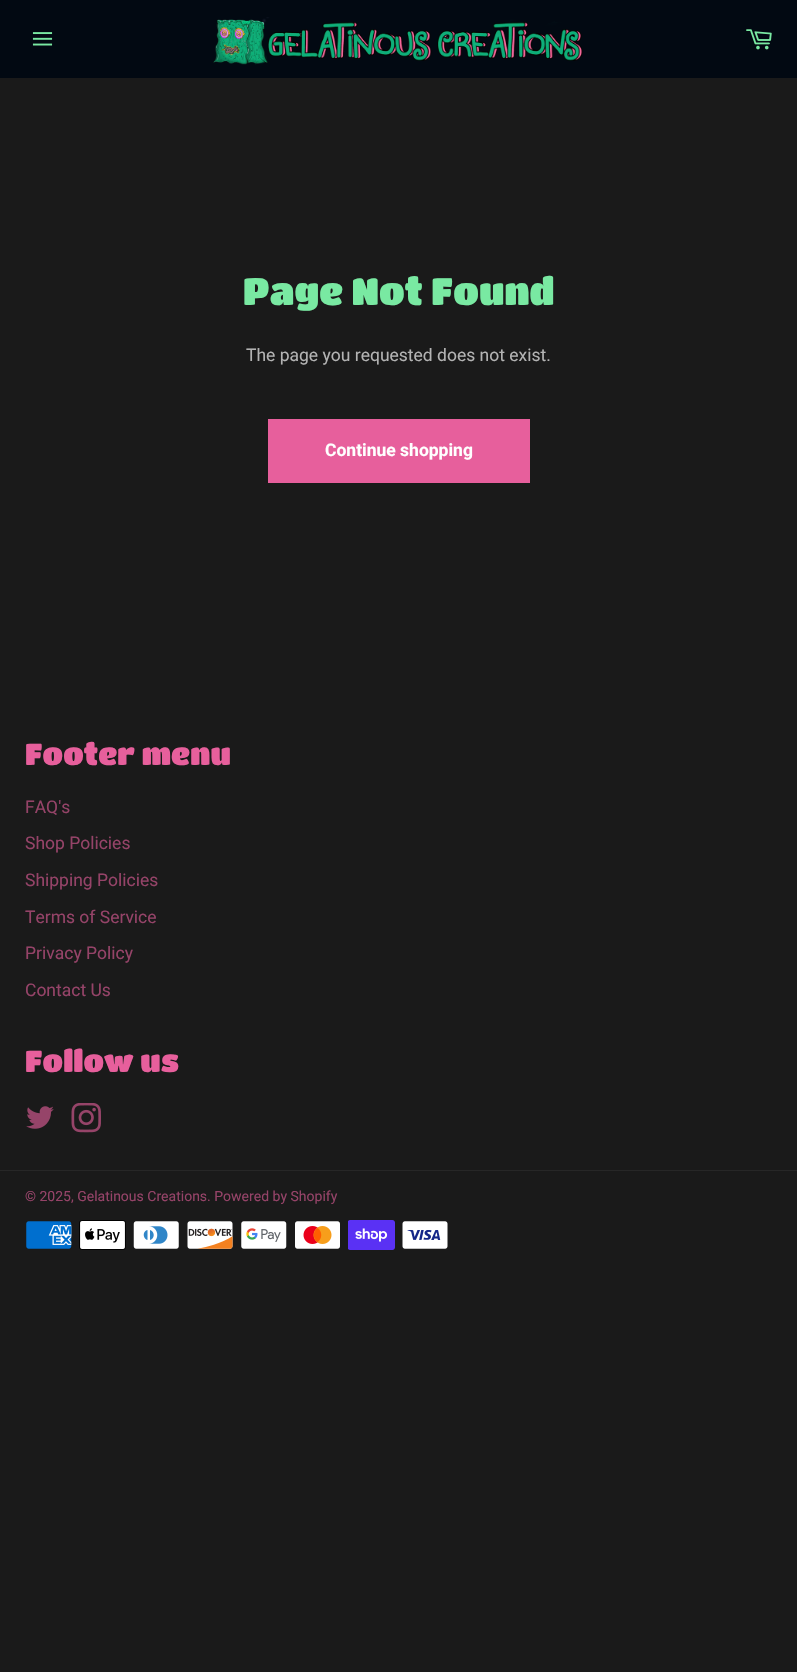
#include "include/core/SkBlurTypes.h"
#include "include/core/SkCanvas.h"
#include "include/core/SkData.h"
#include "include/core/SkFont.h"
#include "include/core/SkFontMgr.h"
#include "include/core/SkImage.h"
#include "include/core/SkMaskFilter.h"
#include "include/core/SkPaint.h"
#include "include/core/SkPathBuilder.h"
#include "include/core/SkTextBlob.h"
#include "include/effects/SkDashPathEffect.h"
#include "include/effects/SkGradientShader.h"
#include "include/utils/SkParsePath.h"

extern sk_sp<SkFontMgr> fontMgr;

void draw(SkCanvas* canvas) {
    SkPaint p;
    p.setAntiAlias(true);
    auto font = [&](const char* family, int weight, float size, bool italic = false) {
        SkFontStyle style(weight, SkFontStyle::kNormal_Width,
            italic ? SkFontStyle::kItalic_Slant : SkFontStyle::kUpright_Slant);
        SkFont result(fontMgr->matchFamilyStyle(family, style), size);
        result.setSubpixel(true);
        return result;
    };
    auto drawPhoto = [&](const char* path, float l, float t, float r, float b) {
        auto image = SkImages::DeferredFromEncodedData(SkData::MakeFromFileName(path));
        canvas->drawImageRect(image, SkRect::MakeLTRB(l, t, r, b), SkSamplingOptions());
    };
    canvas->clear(0xFF1A1A1A);
    p.setColor(0xFF020912);
    canvas->drawRect(SkRect::MakeLTRB(0, 0, 797, 78), p);
    drawPhoto("media/1.png", 32, 32, 53, 46);
    drawPhoto("media/2.png", 213, 17, 583, 65);
    drawPhoto("media/3.png", 746, 29, 772, 50);
    auto font1 = font("Titan One", 400, 37.5f);
    p.setColor(0xFF79E9A2);
    canvas->drawString("Page Not Found", 243, 305, font1, p);
    auto font2 = font("Roboto", 400, 17.5f);
    p.setColor(0xFFB3B3B3);
    canvas->drawString("The page you requested does not exist.", 246, 361, font2, p);
    p.setColor(0xFFE75F9C);
    canvas->drawRect(SkRect::MakeLTRB(268, 419, 530, 483), p);
    auto font3 = font("Roboto", 700, 17.5f);
    p.setColor(0xFFFFFFFF);
    canvas->drawString("Continue shopping", 325, 456, font3, p);
    auto font4 = font("Titan One", 400, 30);
    p.setColor(0xFFE75F9C);
    canvas->drawString("Footer menu", 25, 765, font4, p);
    p.setColor(0xFF954368);
    {
        const struct { const char* s; float x, y; } items[] = {
            {"FAQ's", 25, 813},
            {"Shop Policies", 25, 849},
            {"Shipping Policies", 25, 886},
            {"Terms of Service", 25, 923},
            {"Privacy Policy", 25, 959},
            {"Contact Us", 25, 996},
        };
        for (auto [s, x, y] : items) {
            canvas->drawString(s, x, y, font2, p);
        }
    }
    p.setColor(0xFFE75F9C);
    canvas->drawString("Follow us", 25, 1072, font4, p);
    drawPhoto("media/4.png", 26, 1106, 54, 1129);
    drawPhoto("media/5.png", 71, 1103, 101, 1133);
    p.setColor(0xFF272727);
    canvas->drawRect(SkRect::MakeLTRB(0, 1170, 797, 1171), p);
    auto font5 = font("Roboto", 400, 14);
    p.setColor(0xFF954368);
    canvas->drawString("© 2025, Gelatinous Creations. Powered by Shopify", 25, 1201, font5, p);
    drawPhoto("media/6.png", 26, 1221, 72, 1249);
    drawPhoto("media/7.png", 79, 1220, 126, 1250);
    drawPhoto("media/8.png", 133, 1221, 179, 1249);
    drawPhoto("media/9.png", 187, 1221, 233, 1249);
    drawPhoto("media/10.png", 241, 1221, 287, 1249);
    drawPhoto("media/11.png", 295, 1221, 340, 1249);
    drawPhoto("media/12.png", 348, 1220, 395, 1250);
    drawPhoto("media/13.png", 402, 1221, 448, 1249);
}
